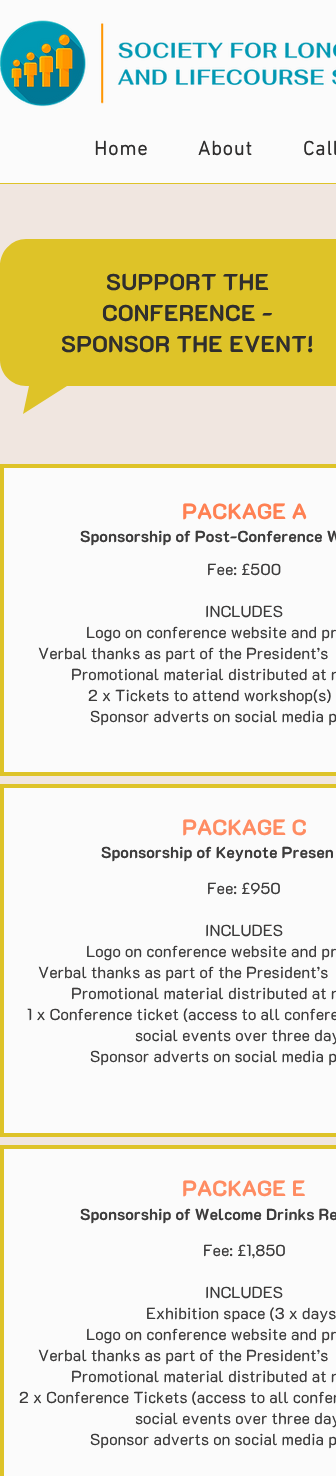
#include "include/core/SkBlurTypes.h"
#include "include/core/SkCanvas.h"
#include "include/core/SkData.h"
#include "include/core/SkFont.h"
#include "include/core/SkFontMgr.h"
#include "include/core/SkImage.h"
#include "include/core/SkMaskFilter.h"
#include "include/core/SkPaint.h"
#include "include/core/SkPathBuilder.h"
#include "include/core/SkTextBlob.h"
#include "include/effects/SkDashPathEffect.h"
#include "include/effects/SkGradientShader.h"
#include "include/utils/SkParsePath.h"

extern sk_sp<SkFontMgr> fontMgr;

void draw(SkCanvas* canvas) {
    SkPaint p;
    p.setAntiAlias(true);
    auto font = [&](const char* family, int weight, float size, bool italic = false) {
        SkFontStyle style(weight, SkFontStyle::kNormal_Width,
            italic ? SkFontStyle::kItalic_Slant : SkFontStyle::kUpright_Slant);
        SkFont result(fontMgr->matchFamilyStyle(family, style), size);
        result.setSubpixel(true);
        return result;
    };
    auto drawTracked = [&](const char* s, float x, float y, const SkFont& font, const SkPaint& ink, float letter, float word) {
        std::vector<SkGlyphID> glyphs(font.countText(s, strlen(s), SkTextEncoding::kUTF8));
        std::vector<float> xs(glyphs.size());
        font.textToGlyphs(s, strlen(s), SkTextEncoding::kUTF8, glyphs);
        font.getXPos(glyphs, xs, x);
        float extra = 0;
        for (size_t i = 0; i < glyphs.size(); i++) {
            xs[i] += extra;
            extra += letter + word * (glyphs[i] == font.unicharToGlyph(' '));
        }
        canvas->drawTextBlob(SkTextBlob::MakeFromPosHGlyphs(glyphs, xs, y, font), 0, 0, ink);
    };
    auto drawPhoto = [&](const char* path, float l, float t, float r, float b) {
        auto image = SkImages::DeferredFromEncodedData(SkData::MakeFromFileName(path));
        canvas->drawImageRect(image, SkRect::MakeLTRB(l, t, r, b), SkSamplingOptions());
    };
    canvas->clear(0xFFFBFBFB);
    drawPhoto("media/1.png", 0, 20, 336, 107);
    auto font1 = font("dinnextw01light", 700, 20);
    p.setColor(0xFF2F2E2E);
    {
        const struct { const char* s; float x, y; } items[] = {
            {"Home", 94, 155},
            {"About", 198, 155},
            {"Call", 303, 155},
        };
        for (auto [s, x, y] : items) {
            drawTracked(s, x, y, font1, p, 1, 0);
        }
    }
    p.setColor(0xFFDEC328);
    canvas->drawRect(SkRect::MakeLTRB(0, 183, 336, 184), p);
    p.setColor(0xFFF0E6E0);
    canvas->drawRect(SkRect::MakeLTRB(0, 184, 336, 1147), p);
    p.setColor(0xFFDEC328);
    canvas->drawPath(SkPathBuilder().moveTo(26, 239).lineTo(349, 239).cubicTo(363, 239, 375, 251, 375, 266).lineTo(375, 360).cubicTo(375, 374, 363, 386, 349, 386).lineTo(67, 386).lineTo(23, 414).lineTo(29, 386).lineTo(26, 386).cubicTo(12, 386, 0, 374, 0, 360).lineTo(0, 266).cubicTo(0, 251, 12, 239, 26, 239).close().detach(), p);
    auto font2 = font("K2D", 700, 23);
    p.setColor(0xFF2F2E2E);
    {
        const struct { const char* s; float x, y; } items[] = {
            {"SUPPORT THE", 106, 290},
            {"CONFERENCE -", 102, 321},
            {"SPONSOR THE EVENT!", 61, 352},
        };
        for (auto [s, x, y] : items) {
            drawTracked(s, x, y, font2, p, 0.25f, 0);
        }
    }
    p.setStyle(SkPaint::kStroke_Style);
    p.setStrokeWidth(4);
    p.setColor(0xFFDEC328);
    canvas->drawRect(SkRect::MakeLTRB(2, 466, 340, 774), p);
    p.setStyle(SkPaint::kFill_Style);
    p.setColor(0xFFFBFBFB);
    canvas->drawRect(SkRect::MakeLTRB(4, 468, 336, 772), p);
    auto font3 = font("K2D", 700, 22);
    p.setColor(0xFFFF8052);
    canvas->drawString("PACKAGE A", 182, 519, font3, p);
    auto font4 = font("K2D", 700, 16);
    p.setColor(0xFF3C3B3B);
    canvas->drawString("Sponsorship of Post-Conference W", 80, 542, font4, p);
    auto font5 = font("K2D", 400, 16);
    {
        const struct { const char* s; float x, y; } items[] = {
            {"Fee: £500", 207, 575},
            {"INCLUDES", 205, 617},
            {"Logo on conference website and pr", 86, 638},
            {"Verbal thanks as part of the President’s", 38, 659},
            {"Promotional material distributed at r", 71, 680},
            {"2 x Tickets to attend workshop(s)", 88, 701},
            {"Sponsor adverts on social media p", 90, 722},
        };
        for (auto [s, x, y] : items) {
            canvas->drawString(s, x, y, font5, p);
        }
    }
    p.setStyle(SkPaint::kStroke_Style);
    p.setColor(0xFFDEC328);
    canvas->drawRect(SkRect::MakeLTRB(2, 786, 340, 1135), p);
    p.setStyle(SkPaint::kFill_Style);
    p.setColor(0xFFFBFBFB);
    canvas->drawRect(SkRect::MakeLTRB(4, 788, 336, 1133), p);
    p.setColor(0xFFFF8C62);
    canvas->drawString("PACKAGE C", 182, 835, font3, p);
    p.setColor(0xFF3C3B3B);
    canvas->drawString("Sponsorship of Keynote Presen", 101, 858, font4, p);
    {
        const struct { const char* s; float x, y; } items[] = {
            {"Fee: £950", 207, 894},
            {"INCLUDES", 205, 936},
            {"Logo on conference website and pr", 86, 957},
            {"Verbal thanks as part of the President’s", 38, 978},
            {"Promotional material distributed at r", 71, 999},
            {"1 x Conference ticket (access to all confere", 27, 1020},
            {"social events over three day", 135, 1041},
            {"Sponsor adverts on social media p", 90, 1062},
        };
        for (auto [s, x, y] : items) {
            canvas->drawString(s, x, y, font5, p);
        }
    }
    p.setStyle(SkPaint::kStroke_Style);
    p.setColor(0xFFDEC328);
    canvas->drawRect(SkRect::MakeLTRB(2, 1147, 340, 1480), p);
    p.setStyle(SkPaint::kFill_Style);
    p.setColor(0xFFFF8C62);
    canvas->drawString("PACKAGE E", 182, 1196, font3, p);
    p.setColor(0xFF3C3B3B);
    canvas->drawString("Sponsorship of Welcome Drinks Re", 80, 1220, font4, p);
    {
        const struct { const char* s; float x, y; } items[] = {
            {"Fee: £1,850", 203, 1256},
            {"INCLUDES", 205, 1298},
            {"Exhibition space (3 x days", 146, 1319},
            {"Logo on conference website and pr", 86, 1340},
            {"Verbal thanks as part of the President’s", 38, 1361},
            {"Promotional material distributed at r", 71, 1382},
            {"2 x Conference Tickets (access to all confer", 19, 1403},
            {"social events over three day", 135, 1424},
            {"Sponsor adverts on social media p", 90, 1445},
        };
        for (auto [s, x, y] : items) {
            canvas->drawString(s, x, y, font5, p);
        }
    }
}
